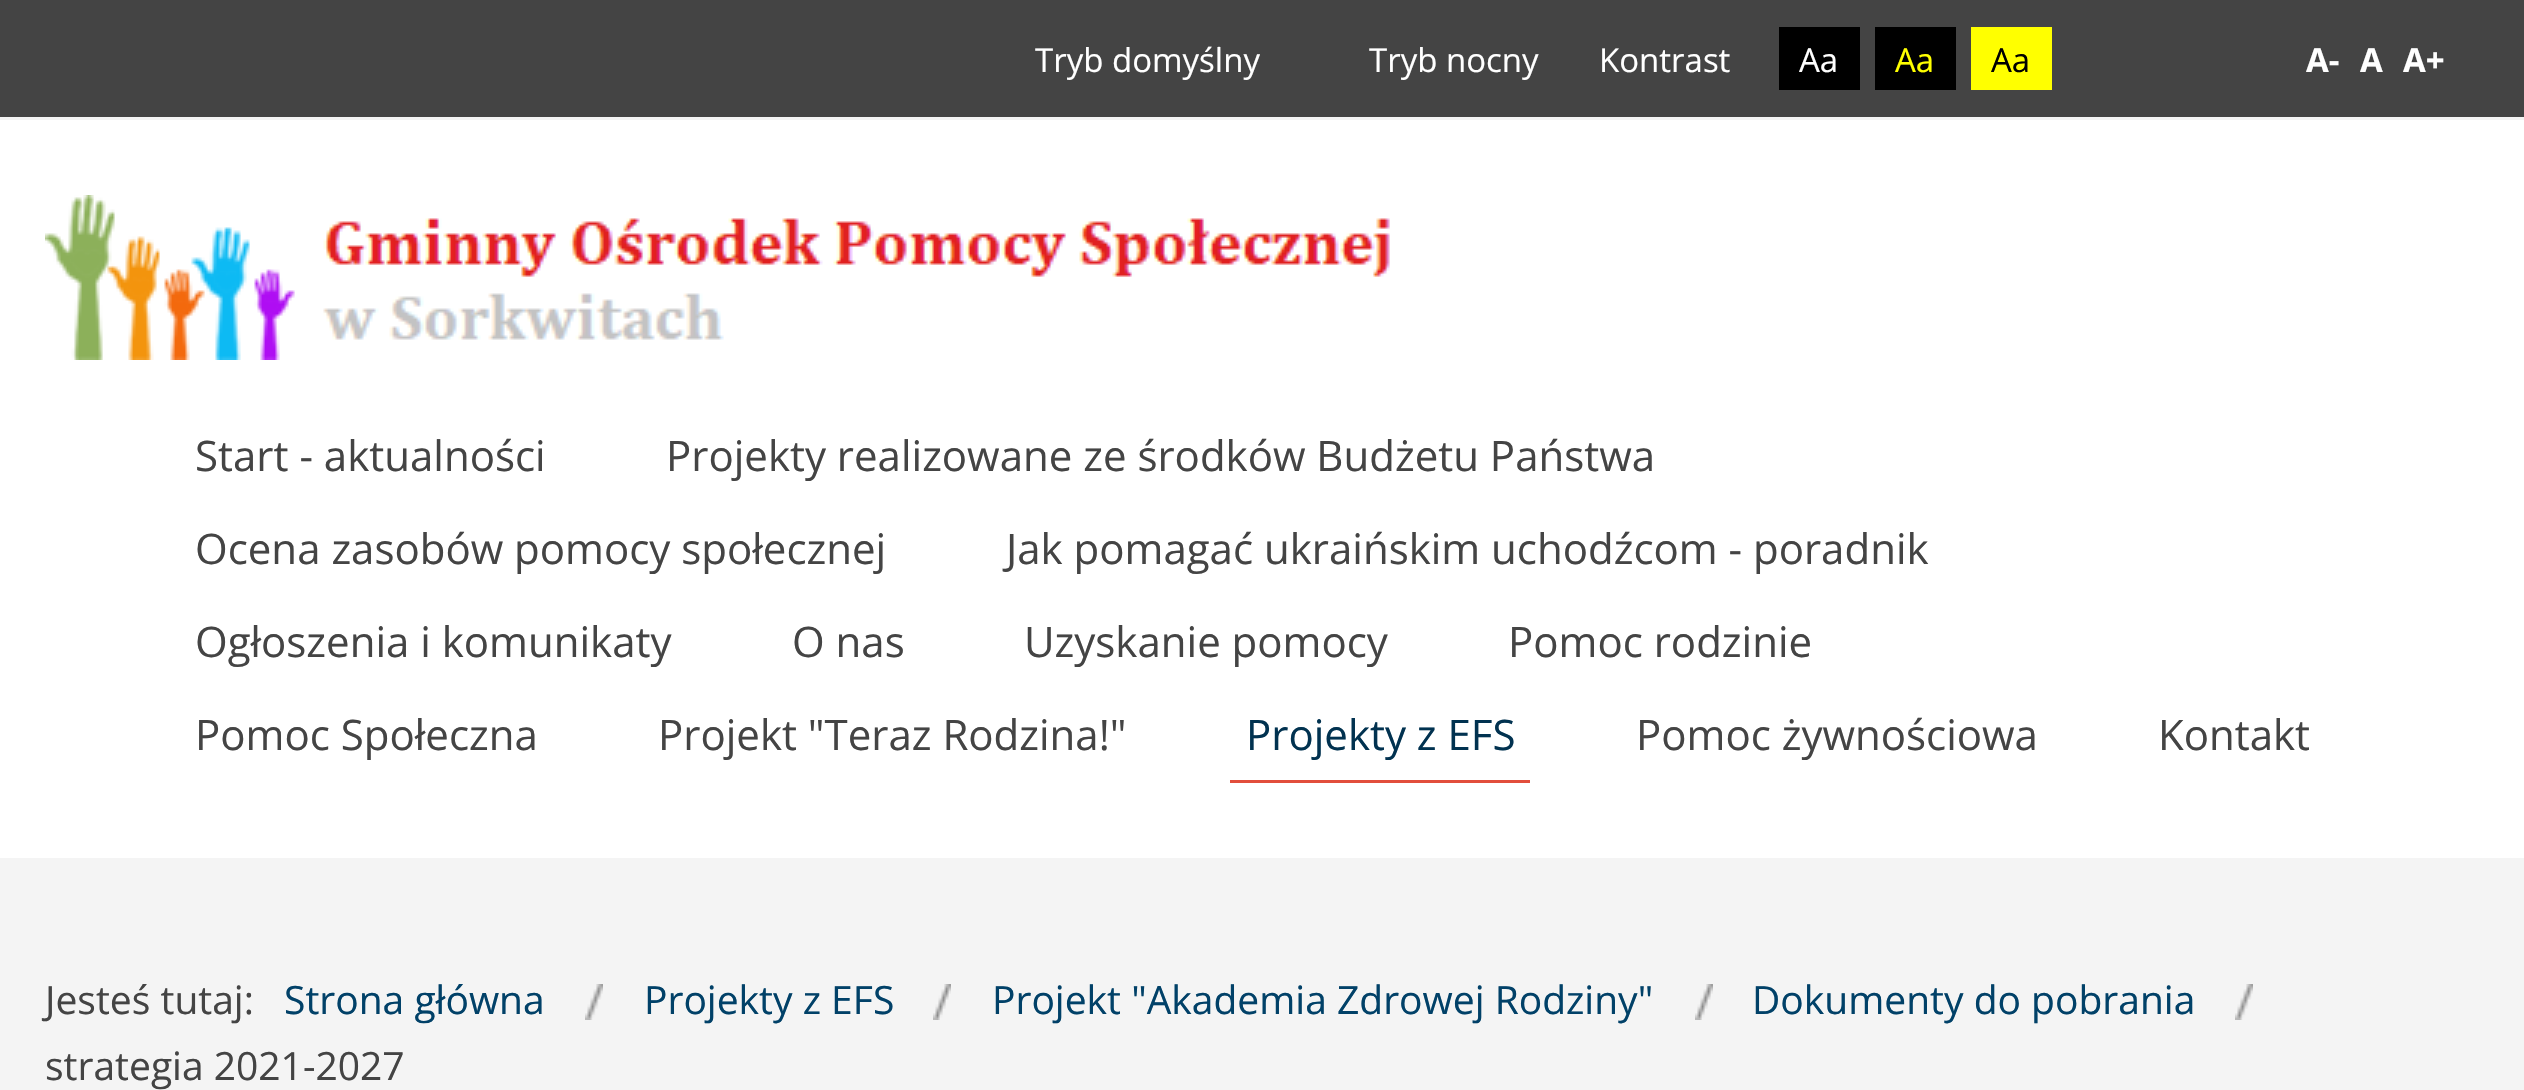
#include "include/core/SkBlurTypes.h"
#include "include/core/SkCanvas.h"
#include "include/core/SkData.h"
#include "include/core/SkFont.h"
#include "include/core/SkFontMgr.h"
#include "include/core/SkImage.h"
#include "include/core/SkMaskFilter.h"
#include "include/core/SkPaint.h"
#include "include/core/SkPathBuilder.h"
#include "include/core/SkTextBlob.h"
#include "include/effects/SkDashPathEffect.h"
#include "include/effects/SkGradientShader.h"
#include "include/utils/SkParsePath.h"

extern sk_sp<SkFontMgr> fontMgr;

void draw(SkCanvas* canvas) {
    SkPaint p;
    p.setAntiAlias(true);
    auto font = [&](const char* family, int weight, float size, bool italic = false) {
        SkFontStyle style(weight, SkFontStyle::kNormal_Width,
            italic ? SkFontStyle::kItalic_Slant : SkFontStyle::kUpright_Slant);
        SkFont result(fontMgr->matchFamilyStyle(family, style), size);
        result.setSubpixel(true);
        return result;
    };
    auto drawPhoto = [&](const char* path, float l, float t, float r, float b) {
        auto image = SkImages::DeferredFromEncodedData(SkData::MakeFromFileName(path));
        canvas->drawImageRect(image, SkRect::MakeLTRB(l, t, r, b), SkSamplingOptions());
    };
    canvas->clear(0xFFF4F4F4);
    p.setColor(0xFF444444);
    canvas->drawRect(SkRect::MakeLTRB(0, 0, 2524, 117), p);
    auto font1 = font("Open Sans", 400, 33);
    p.setColor(0xFFFFFFFF);
    {
        const struct { const char* s; float x, y; } items[] = {
            {"Tryb domyślny", 1035, 72},
            {"Tryb nocny", 1369, 72},
            {"Kontrast", 1599, 72},
        };
        for (auto [s, x, y] : items) {
            canvas->drawString(s, x, y, font1, p);
        }
    }
    p.setColor(0xFF000000);
    canvas->drawRect(SkRect::MakeLTRB(1779, 27, 1860, 90), p);
    p.setColor(0xFFFFFFFF);
    canvas->drawString("Aa", 1799, 72, font1, p);
    p.setColor(0xFF000000);
    canvas->drawRect(SkRect::MakeLTRB(1875, 27, 1956, 90), p);
    p.setColor(0xFFFFFF00);
    canvas->drawString("Aa", 1895, 72, font1, p);
    canvas->drawRect(SkRect::MakeLTRB(1971, 27, 2052, 90), p);
    p.setColor(0xFF000000);
    canvas->drawString("Aa", 1991, 72, font1, p);
    auto font2 = font("Open Sans", 700, 33);
    p.setColor(0xFFFFFFFF);
    {
        const struct { const char* s; float x, y; } items[] = {
            {"A-", 2306, 72},
            {"A", 2360, 72},
            {"A+", 2403, 72},
        };
        for (auto [s, x, y] : items) {
            canvas->drawString(s, x, y, font2, p);
        }
    }
    canvas->drawRect(SkRect::MakeLTRB(0, 120, 2524, 858), p);
    drawPhoto("media/1.png", 45, 195, 1390, 360);
    auto font3 = font("Open Sans", 400, 42);
    p.setColor(0xFF444444);
    {
        const struct { const char* s; float x, y; } items[] = {
            {"Start - aktualności", 195, 471},
            {"Projekty realizowane ze środków Budżetu Państwa", 666, 471},
            {"Ocena zasobów pomocy społecznej", 195, 564},
            {"Jak pomagać ukraińskim uchodźcom - poradnik", 1006, 564},
            {"Ogłoszenia i komunikaty", 195, 657},
            {"O nas", 792, 657},
            {"Uzyskanie pomocy", 1024, 657},
            {"Pomoc rodzinie", 1508, 657},
            {"Pomoc Społeczna", 195, 750},
            {"Projekt \"Teraz Rodzina!\"", 658, 750},
        };
        for (auto [s, x, y] : items) {
            canvas->drawString(s, x, y, font3, p);
        }
    }
    p.setColor(0xFFE24E3C);
    canvas->drawRect(SkRect::MakeLTRB(1230, 780, 1530, 783), p);
    p.setColor(0xFF013250);
    canvas->drawString("Projekty z EFS", 1246, 750, font3, p);
    p.setColor(0xFF444444);
    canvas->drawString("Pomoc żywnościowa", 1636, 750, font3, p);
    canvas->drawString("Kontakt", 2158, 750, font3, p);
    auto font4 = font("Open Sans", 400, 39);
    canvas->drawString("Jesteś tutaj:", 45, 1014, font4, p);
    p.setColor(0xFF014168);
    canvas->drawString("Strona główna", 284, 1014, font4, p);
    drawPhoto("media/2.png", 585, 984, 603, 1020);
    canvas->drawString("Projekty z EFS", 644, 1014, font4, p);
    drawPhoto("media/3.png", 933, 984, 951, 1020);
    canvas->drawString("Projekt \"Akademia Zdrowej Rodziny\"", 992, 1014, font4, p);
    drawPhoto("media/3.png", 1695, 984, 1713, 1020);
    canvas->drawString("Dokumenty do pobrania", 1752, 1014, font4, p);
    drawPhoto("media/2.png", 2235, 984, 2253, 1020);
    p.setColor(0xFF444444);
    canvas->drawString("strategia 2021-2027", 45, 1080, font4, p);
}
